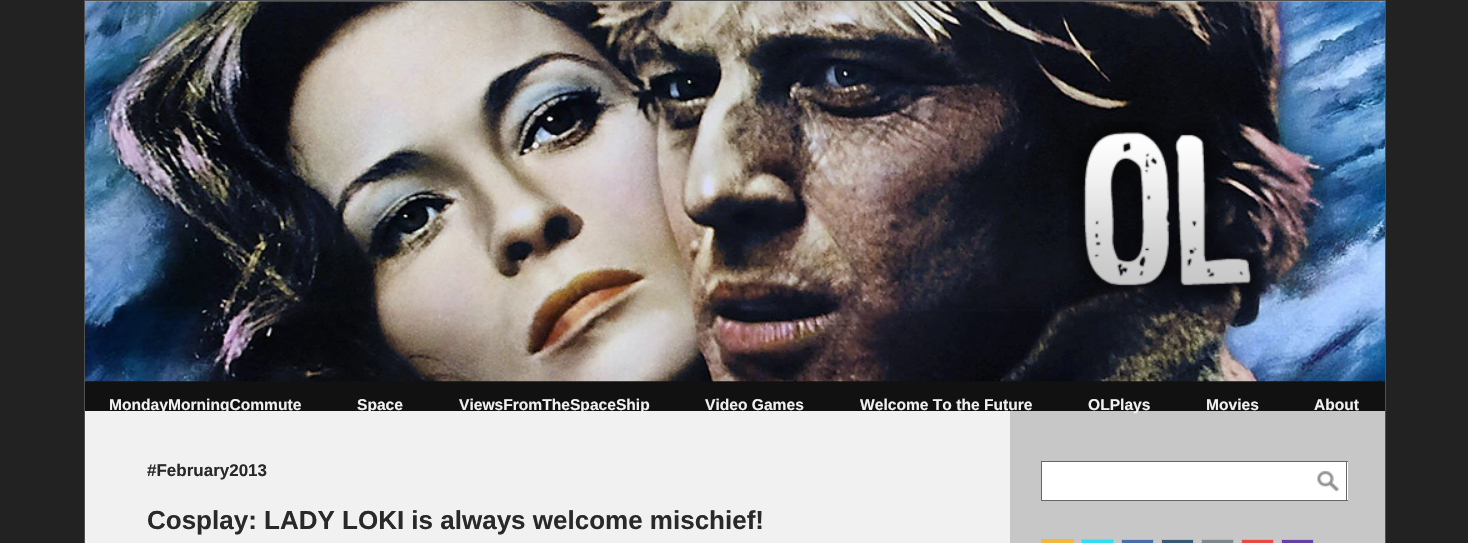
#include "include/core/SkBlurTypes.h"
#include "include/core/SkCanvas.h"
#include "include/core/SkData.h"
#include "include/core/SkFont.h"
#include "include/core/SkFontMgr.h"
#include "include/core/SkImage.h"
#include "include/core/SkMaskFilter.h"
#include "include/core/SkPaint.h"
#include "include/core/SkPathBuilder.h"
#include "include/core/SkTextBlob.h"
#include "include/effects/SkDashPathEffect.h"
#include "include/effects/SkGradientShader.h"
#include "include/utils/SkParsePath.h"

extern sk_sp<SkFontMgr> fontMgr;

void draw(SkCanvas* canvas) {
    SkPaint p;
    p.setAntiAlias(true);
    auto font = [&](const char* family, int weight, float size, bool italic = false) {
        SkFontStyle style(weight, SkFontStyle::kNormal_Width,
            italic ? SkFontStyle::kItalic_Slant : SkFontStyle::kUpright_Slant);
        SkFont result(fontMgr->matchFamilyStyle(family, style), size);
        result.setSubpixel(true);
        return result;
    };
    auto drawPhoto = [&](const char* path, float l, float t, float r, float b) {
        auto image = SkImages::DeferredFromEncodedData(SkData::MakeFromFileName(path));
        canvas->drawImageRect(image, SkRect::MakeLTRB(l, t, r, b), SkSamplingOptions());
    };
    canvas->clear(0xFF222222);
    p.setColor(0xFFC7C7C7);
    canvas->drawRect(SkRect::MakeLTRB(84.5f, 0.5f, 1385.5f, 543.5f), p);
    p.setStyle(SkPaint::kStroke_Style);
    p.setStrokeWidth(1);
    p.setColor(0xFF515151);
    canvas->drawRect(SkRect::MakeLTRB(84.5f, 0.5f, 1385.5f, 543.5f), p);
    p.setStyle(SkPaint::kFill_Style);
    p.setColor(0xFF111111);
    canvas->drawRect(SkRect::MakeLTRB(85, 381, 1385, 411), p);
    drawPhoto("media/1.png", 85, 1, 1385, 382);
    drawPhoto("media/2.png", 1068, 121, 1274, 307);
    p.setColor(0xFFF1F1F1);
    canvas->drawRect(SkRect::MakeLTRB(85, 411, 1010, 543), p);
    auto font1 = font("Liberation Sans", 700, 15.6f);
    {
        const struct { const char* s; float x, y; } items[] = {
            {"MondayMorningCommute", 109, 410},
            {"Space", 357, 410},
            {"ViewsFromTheSpaceShip", 459, 410},
            {"Video Games", 705, 410},
            {"Welcome To the Future", 860, 410},
            {"OLPlays", 1088, 410},
            {"Movies", 1206, 410},
            {"About", 1314, 410},
        };
        for (auto [s, x, y] : items) {
            canvas->drawString(s, x, y, font1, p);
        }
    }
    auto font2 = font("Liberation Sans", 700, 17);
    p.setColor(0xFF292929);
    canvas->drawString("#February2013", 147, 476, font2, p);
    auto font3 = font("Liberation Sans", 700, 26);
    canvas->drawString("Cosplay: LADY LOKI is always welcome mischief!", 147, 529, font3, p);
    {
        const struct { float l, t, r, b; SkColor color; } items[] = {
            {1042, 462, 1348, 500, 0xFFFFFFFF},
            {1041, 461, 1348, 462, 0xFF666666},
            {1041, 500, 1310, 501, 0xFF666666},
            {1041, 461, 1042, 501, 0xFF666666},
        };
        for (auto [l, t, r, b, color] : items) {
            p.setColor(color);
            canvas->drawRect(SkRect::MakeLTRB(l, t, r, b), p);
        }
    }
    drawPhoto("media/3.png", 1317, 471, 1339, 492);
    canvas->drawRect(SkRect::MakeLTRB(1346, 461, 1347, 501), p);
    canvas->drawRect(SkRect::MakeLTRB(1310, 500, 1348, 501), p);
    p.setColor(0xFFF3B73E);
    canvas->drawRect(SkRect::MakeLTRB(1041.5f, 539.5f, 1073.5f, 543.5f), p);
    p.setStyle(SkPaint::kStroke_Style);
    p.setColor(0xFFBBBBBB);
    canvas->drawRect(SkRect::MakeLTRB(1041.5f, 539.5f, 1073.5f, 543.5f), p);
    p.setStyle(SkPaint::kFill_Style);
    p.setColor(0xFF31DDF3);
    canvas->drawRect(SkRect::MakeLTRB(1081.5f, 539.5f, 1113.5f, 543.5f), p);
    p.setStyle(SkPaint::kStroke_Style);
    p.setColor(0xFFBBBBBB);
    canvas->drawRect(SkRect::MakeLTRB(1081.5f, 539.5f, 1113.5f, 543.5f), p);
    p.setStyle(SkPaint::kFill_Style);
    p.setColor(0xFF496DA8);
    canvas->drawRect(SkRect::MakeLTRB(1121.5f, 539.5f, 1153.5f, 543.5f), p);
    p.setStyle(SkPaint::kStroke_Style);
    p.setColor(0xFFBBBBBB);
    canvas->drawRect(SkRect::MakeLTRB(1121.5f, 539.5f, 1153.5f, 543.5f), p);
    p.setStyle(SkPaint::kFill_Style);
    p.setColor(0xFF385875);
    canvas->drawRect(SkRect::MakeLTRB(1161.5f, 539.5f, 1193.5f, 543.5f), p);
    p.setStyle(SkPaint::kStroke_Style);
    p.setColor(0xFFBBBBBB);
    canvas->drawRect(SkRect::MakeLTRB(1161.5f, 539.5f, 1193.5f, 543.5f), p);
    p.setStyle(SkPaint::kFill_Style);
    p.setColor(0xFF7E878B);
    canvas->drawRect(SkRect::MakeLTRB(1201.5f, 539.5f, 1233.5f, 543.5f), p);
    p.setStyle(SkPaint::kStroke_Style);
    p.setColor(0xFFBBBBBB);
    canvas->drawRect(SkRect::MakeLTRB(1201.5f, 539.5f, 1233.5f, 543.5f), p);
    p.setStyle(SkPaint::kFill_Style);
    p.setColor(0xFFE64A41);
    canvas->drawRect(SkRect::MakeLTRB(1241.5f, 539.5f, 1273.5f, 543.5f), p);
    p.setStyle(SkPaint::kStroke_Style);
    p.setColor(0xFFBBBBBB);
    canvas->drawRect(SkRect::MakeLTRB(1241.5f, 539.5f, 1273.5f, 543.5f), p);
    p.setStyle(SkPaint::kFill_Style);
    p.setColor(0xFF6441A5);
    canvas->drawRect(SkRect::MakeLTRB(1281.5f, 539.5f, 1313.5f, 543.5f), p);
    p.setStyle(SkPaint::kStroke_Style);
    p.setColor(0xFFBBBBBB);
    canvas->drawRect(SkRect::MakeLTRB(1281.5f, 539.5f, 1313.5f, 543.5f), p);
}
